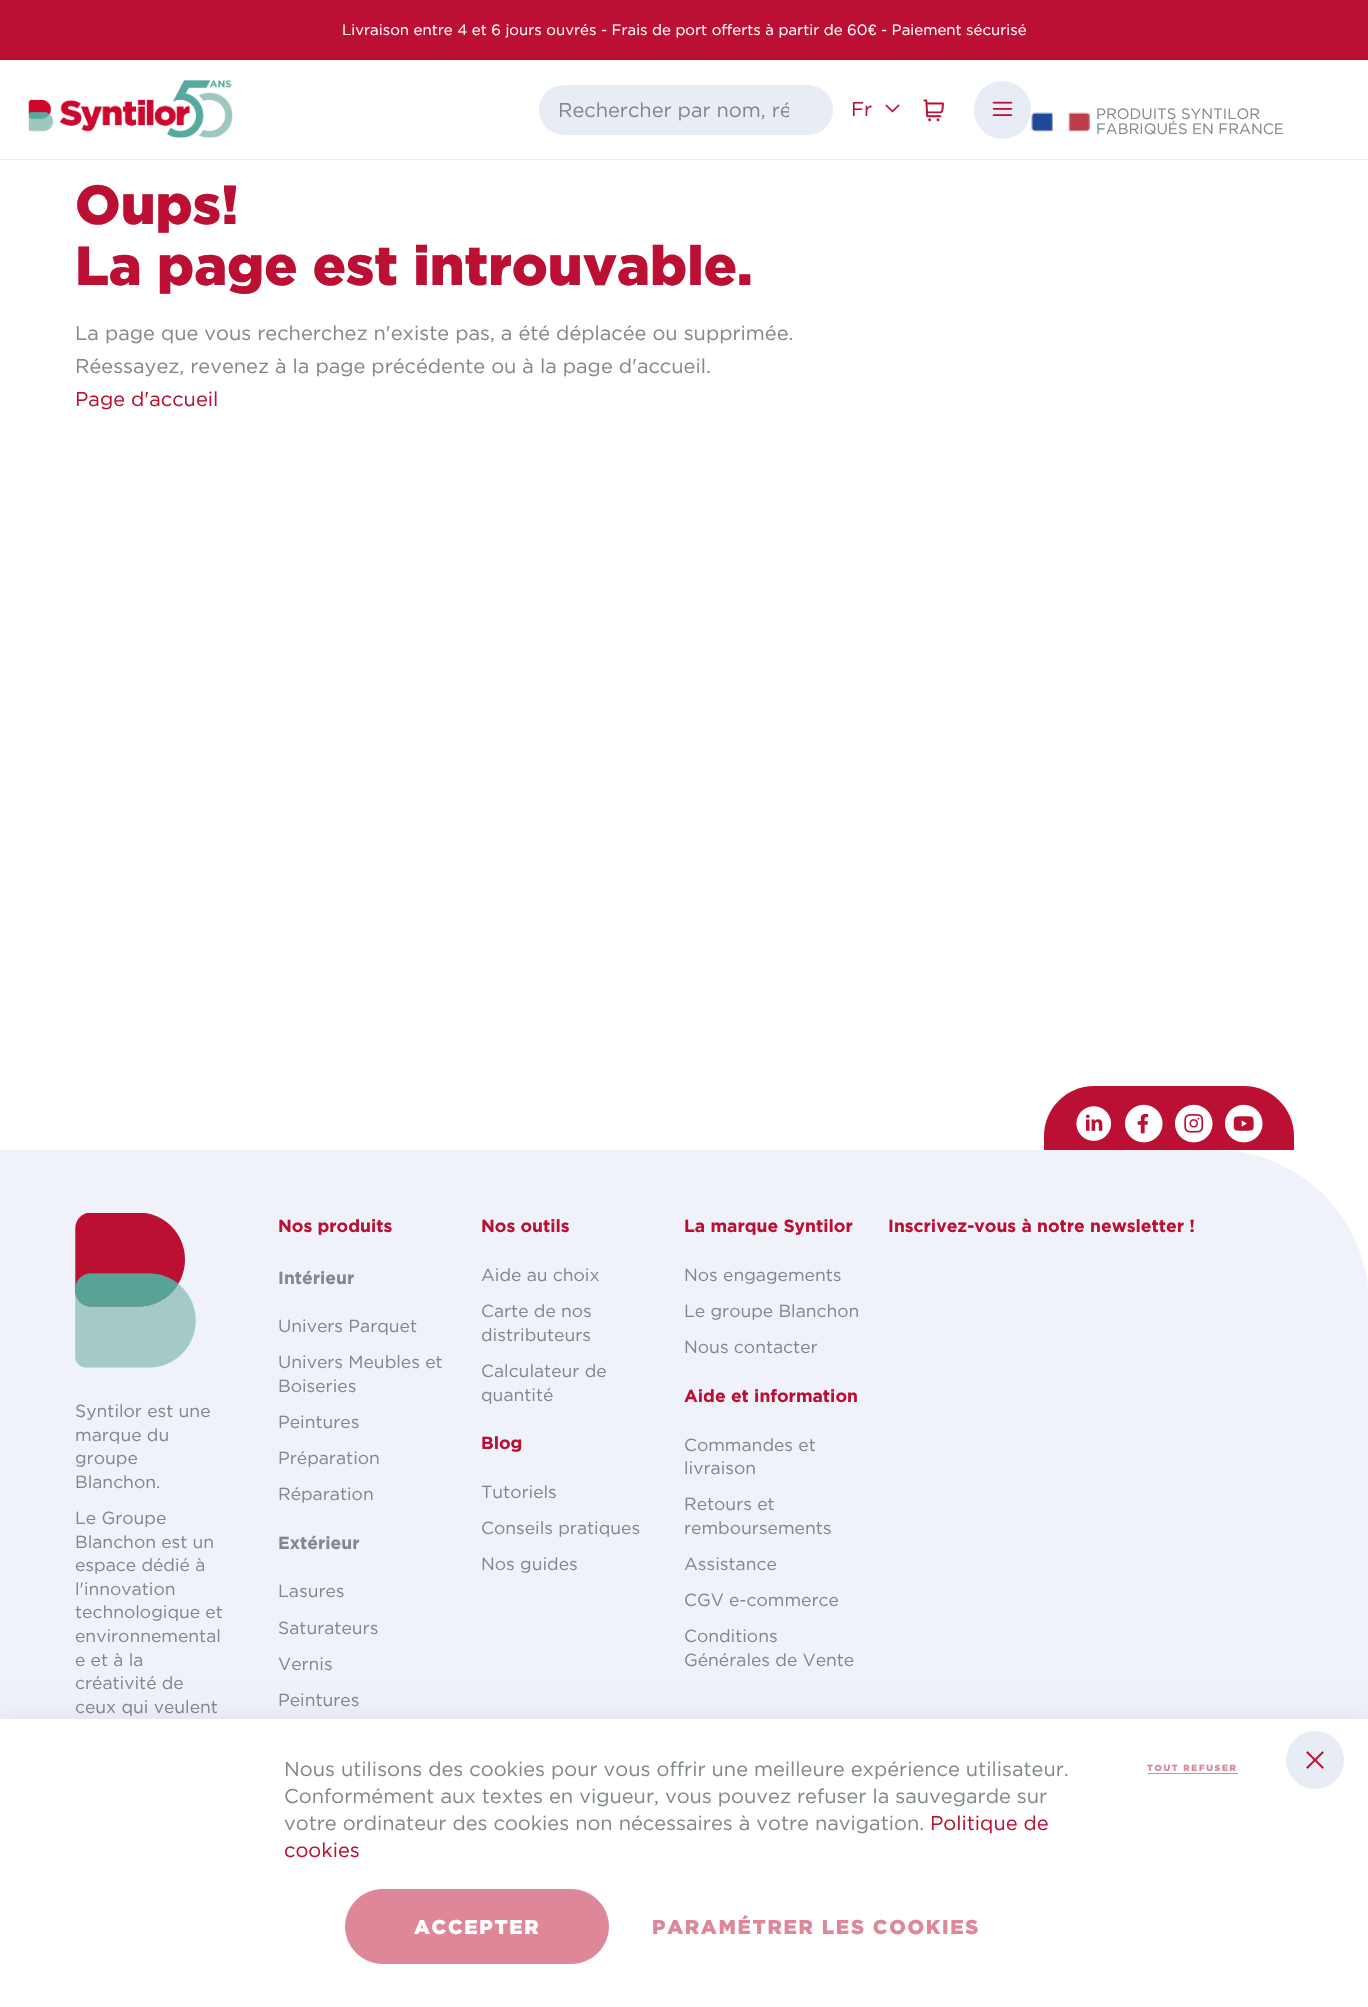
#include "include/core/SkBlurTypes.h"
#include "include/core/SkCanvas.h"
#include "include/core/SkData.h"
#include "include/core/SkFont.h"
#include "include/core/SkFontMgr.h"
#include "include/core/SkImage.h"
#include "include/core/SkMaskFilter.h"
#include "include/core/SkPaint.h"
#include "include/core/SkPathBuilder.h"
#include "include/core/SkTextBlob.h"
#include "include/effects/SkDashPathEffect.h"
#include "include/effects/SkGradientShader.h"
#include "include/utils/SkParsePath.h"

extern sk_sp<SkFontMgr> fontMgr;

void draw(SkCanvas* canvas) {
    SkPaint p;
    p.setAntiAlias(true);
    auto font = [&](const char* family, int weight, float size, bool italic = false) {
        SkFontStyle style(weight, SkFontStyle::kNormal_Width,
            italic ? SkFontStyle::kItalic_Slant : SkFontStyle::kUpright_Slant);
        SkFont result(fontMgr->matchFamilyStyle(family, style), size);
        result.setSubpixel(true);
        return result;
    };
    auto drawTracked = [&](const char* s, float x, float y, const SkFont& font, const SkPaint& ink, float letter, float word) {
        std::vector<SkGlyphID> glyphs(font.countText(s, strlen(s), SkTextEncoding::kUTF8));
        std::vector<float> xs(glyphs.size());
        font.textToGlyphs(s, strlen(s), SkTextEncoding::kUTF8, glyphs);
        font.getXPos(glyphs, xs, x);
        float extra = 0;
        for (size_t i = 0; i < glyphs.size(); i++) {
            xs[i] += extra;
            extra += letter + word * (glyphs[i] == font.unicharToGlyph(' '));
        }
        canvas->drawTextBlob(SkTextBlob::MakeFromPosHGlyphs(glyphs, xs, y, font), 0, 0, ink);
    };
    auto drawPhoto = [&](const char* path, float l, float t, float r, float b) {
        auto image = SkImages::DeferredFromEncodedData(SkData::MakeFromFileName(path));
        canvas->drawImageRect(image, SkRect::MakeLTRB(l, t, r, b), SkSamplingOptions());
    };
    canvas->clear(0xFFFFFFFF);
    p.setColor(0xFFE8EDF5);
    canvas->drawRect(SkRect::MakeLTRB(0, 159, 1368, 160), p);
    p.setColor(0xFFBB0F33);
    canvas->drawRect(SkRect::MakeLTRB(0, 0, 1368, 60), p);
    auto font1 = font("Gotham", 400, 15);
    p.setColor(0xFFFFFFFF);
    canvas->drawString("Livraison entre 4 et 6 jours ouvrés - Frais de port offerts à partir de 60", 342, 35, font1, p);
    auto font2 = font("Liberation Sans", 400, 15);
    canvas->drawString("€", 868, 35, font2, p);
    canvas->drawString("- Paiement sécurisé", 881, 35, font1, p);
    drawPhoto("media/1.png", 28, 80, 233, 138);
    p.setColor(0xFFE8EDF5);
    canvas->drawRoundRect(SkRect::MakeLTRB(539, 85, 833, 135), 25, 25, p);
    canvas->save();
    canvas->clipRect(SkRect::MakeLTRB(558, 99, 789, 121));
    auto font3 = font("Gotham", 400, 20);
    p.setColor(0xFF82898C);
    canvas->drawString("Rechercher par nom, ré", 558, 117, font3, p);
    canvas->restore();
    p.setColor(0xFFBB0F33);
    canvas->drawString("Fr", 851, 116, font3, p);
    drawPhoto("media/2.png", 885, 104, 900, 113);
    drawPhoto("media/3.png", 923, 99, 944, 122);
    p.setColor(0xFFE8EDF5);
    canvas->drawRoundRect(SkRect::MakeLTRB(974, 81, 1031, 139), 28.5f, 28.5f, p);
    drawPhoto("media/4.png", 992, 101, 1013, 116);
    drawPhoto("media/5.png", 1031, 112, 1090, 132);
    p.setColor(0xFF82898C);
    canvas->drawString("PRODUITS SYNTILOR", 1096, 119, font1, p);
    canvas->drawString("FABRIQUÉS EN FRANCE", 1096, 134, font1, p);
    auto font4 = font("Gotham", 900, 55);
    p.setColor(0xFFBB0F33);
    canvas->drawString("Oups!", 75, 224, font4, p);
    canvas->drawString("La page est introuvable.", 75, 285, font4, p);
    p.setColor(0xFF82898C);
    canvas->drawString("La page que vous recherchez n'existe pas, a été déplacée ou supprimée.", 75, 340, font3, p);
    canvas->drawString("Réessayez, revenez à la page précédente ou à la page d'accueil.", 75, 373, font3, p);
    p.setColor(0xFFBB0F33);
    canvas->drawString("Page d'accueil", 75, 406, font3, p);
    p.setColor(0xFFEFF2F8);
    canvas->drawPath(SkPathBuilder().moveTo(0, 1150).lineTo(1215, 1150).cubicTo(1300, 1150, 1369, 1219, 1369, 1304).lineTo(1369, 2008).lineTo(0, 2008).close().detach(), p);
    p.setColor(0xFFBB0F33);
    canvas->drawPath(SkPathBuilder().moveTo(1094, 1086).lineTo(1244, 1086).cubicTo(1271.5f, 1086, 1294, 1108.5f, 1294, 1136).lineTo(1294, 1150).lineTo(1044, 1150).lineTo(1044, 1136).cubicTo(1044, 1108.5f, 1066.5f, 1086, 1094, 1086).close().detach(), p);
    drawPhoto("media/6.png", 1076, 1106, 1112, 1141);
    drawPhoto("media/7.png", 1125, 1104, 1163, 1143);
    drawPhoto("media/8.png", 1175, 1104, 1213, 1143);
    drawPhoto("media/9.png", 1225, 1104, 1263, 1143);
    drawPhoto("media/10.png", 75, 1213, 196, 1368);
    auto font5 = font("Gotham", 400, 17.5f);
    p.setColor(0xFF82898C);
    {
        const struct { const char* s; float x, y; } items[] = {
            {"Syntilor est une", 75, 1417},
            {"marque du", 75, 1441},
            {"groupe", 75, 1464},
            {"Blanchon.", 75, 1488},
            {"Le Groupe", 75, 1524},
            {"Blanchon est un", 75, 1548},
            {"espace dédié à", 75, 1571},
            {"l'innovation", 75, 1595},
            {"technologique et", 75, 1618},
            {"environnemental", 75, 1642},
            {"e et à la", 75, 1666},
            {"créativité de", 75, 1689},
            {"ceux qui veulent", 75, 1713},
        };
        for (auto [s, x, y] : items) {
            canvas->drawString(s, x, y, font5, p);
        }
    }
    auto font6 = font("Gotham", 700, 17.5f);
    p.setColor(0xFFBB0F33);
    canvas->drawString("Nos produits", 278, 1232, font6, p);
    p.setColor(0xFF82898C);
    canvas->drawString("Intérieur", 278, 1284, font6, p);
    {
        const struct { const char* s; float x, y; } items[] = {
            {"Univers Parquet", 278, 1332},
            {"Univers Meubles et", 278, 1368},
            {"Boiseries", 278, 1392},
            {"Peintures", 278, 1428},
            {"Préparation", 278, 1464},
            {"Réparation", 278, 1500},
        };
        for (auto [s, x, y] : items) {
            canvas->drawString(s, x, y, font5, p);
        }
    }
    canvas->drawString("Extérieur", 278, 1549, font6, p);
    {
        const struct { const char* s; float x, y; } items[] = {
            {"Lasures", 278, 1597},
            {"Saturateurs", 278, 1634},
            {"Vernis", 278, 1670},
            {"Peintures", 278, 1706},
        };
        for (auto [s, x, y] : items) {
            canvas->drawString(s, x, y, font5, p);
        }
    }
    p.setColor(0xFFBB0F33);
    canvas->drawString("Nos outils", 481, 1232, font6, p);
    p.setColor(0xFF82898C);
    {
        const struct { const char* s; float x, y; } items[] = {
            {"Aide au choix", 481, 1281},
            {"Carte de nos", 481, 1317},
            {"distributeurs", 481, 1341},
            {"Calculateur de", 481, 1377},
            {"quantité", 481, 1401},
        };
        for (auto [s, x, y] : items) {
            canvas->drawString(s, x, y, font5, p);
        }
    }
    p.setColor(0xFFBB0F33);
    canvas->drawString("Blog", 481, 1449, font6, p);
    p.setColor(0xFF82898C);
    {
        const struct { const char* s; float x, y; } items[] = {
            {"Tutoriels", 481, 1498},
            {"Conseils pratiques", 481, 1534},
            {"Nos guides", 481, 1570},
        };
        for (auto [s, x, y] : items) {
            canvas->drawString(s, x, y, font5, p);
        }
    }
    p.setColor(0xFFBB0F33);
    canvas->drawString("La marque Syntilor", 684, 1232, font6, p);
    p.setColor(0xFF82898C);
    {
        const struct { const char* s; float x, y; } items[] = {
            {"Nos engagements", 684, 1281},
            {"Le groupe Blanchon", 684, 1317},
            {"Nous contacter", 684, 1353},
        };
        for (auto [s, x, y] : items) {
            canvas->drawString(s, x, y, font5, p);
        }
    }
    p.setColor(0xFFBB0F33);
    canvas->drawString("Aide et information", 684, 1402, font6, p);
    p.setColor(0xFF82898C);
    {
        const struct { const char* s; float x, y; } items[] = {
            {"Commandes et", 684, 1451},
            {"livraison", 684, 1474},
            {"Retours et", 684, 1510},
            {"remboursements", 684, 1534},
            {"Assistance", 684, 1570},
            {"CGV e-commerce", 684, 1606},
            {"Conditions", 684, 1642},
            {"Générales de Vente", 684, 1666},
        };
        for (auto [s, x, y] : items) {
            canvas->drawString(s, x, y, font5, p);
        }
    }
    p.setColor(0xFFBB0F33);
    canvas->drawString("Inscrivez-vous à notre newsletter !", 888, 1232, font6, p);
    p.setColor(0x0F000000);
    p.setMaskFilter(SkMaskFilter::MakeBlur(kNormal_SkBlurStyle, 11));
    canvas->drawRect(SkRect::MakeLTRB(0, 1716, 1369, 2005), p);
    p.setMaskFilter(nullptr);
    p.setColor(0xFFFFFFFF);
    canvas->drawRect(SkRect::MakeLTRB(0, 1719, 1368, 2007), p);
    p.setColor(0xFF82898C);
    {
        const struct { const char* s; float x, y; } items[] = {
            {"Nous utilisons des cookies pour vous offrir une meilleure expérience utilisateur.", 284, 1776},
            {"Conformément aux textes en vigueur, vous pouvez refuser la sauvegarde sur", 284, 1803},
            {"votre ordinateur des cookies non nécessaires à votre navigation.", 284, 1830},
        };
        for (auto [s, x, y] : items) {
            canvas->drawString(s, x, y, font3, p);
        }
    }
    p.setColor(0xFFBB0F33);
    canvas->drawString("Politique de", 930, 1830, font3, p);
    canvas->drawString("cookies", 284, 1857, font3, p);
    auto font7 = font("Gotham", 900, 8.75f);
    p.setColor(0xFFDD8799);
    drawTracked("TOUT REFUSER", 1147, 1771, font7, p, 1.7f, 0);
    canvas->drawRect(SkRect::MakeLTRB(1148, 1773, 1238, 1774), p);
    canvas->drawRoundRect(SkRect::MakeLTRB(345.5f, 1889.5f, 608.5f, 1963.5f), 37, 37, p);
    p.setStyle(SkPaint::kStroke_Style);
    p.setStrokeWidth(1);
    canvas->drawRoundRect(SkRect::MakeLTRB(345.5f, 1889.5f, 608.5f, 1963.5f), 37, 37, p);
    auto font8 = font("Gotham", 900, 20);
    p.setStyle(SkPaint::kFill_Style);
    p.setColor(0xFFFFFFFF);
    drawTracked("ACCEPTER", 414, 1934, font8, p, 1.7f, 0);
    p.setColor(0xFFDD8799);
    drawTracked("PARAMÉTRER LES COOKIES", 652, 1934, font8, p, 1.7f, 0);
    p.setColor(0xFFE8EDF5);
    canvas->drawCircle(1315, 1760, 29, p);
    drawPhoto("media/11.png", 1306, 1751, 1324, 1769);
}
